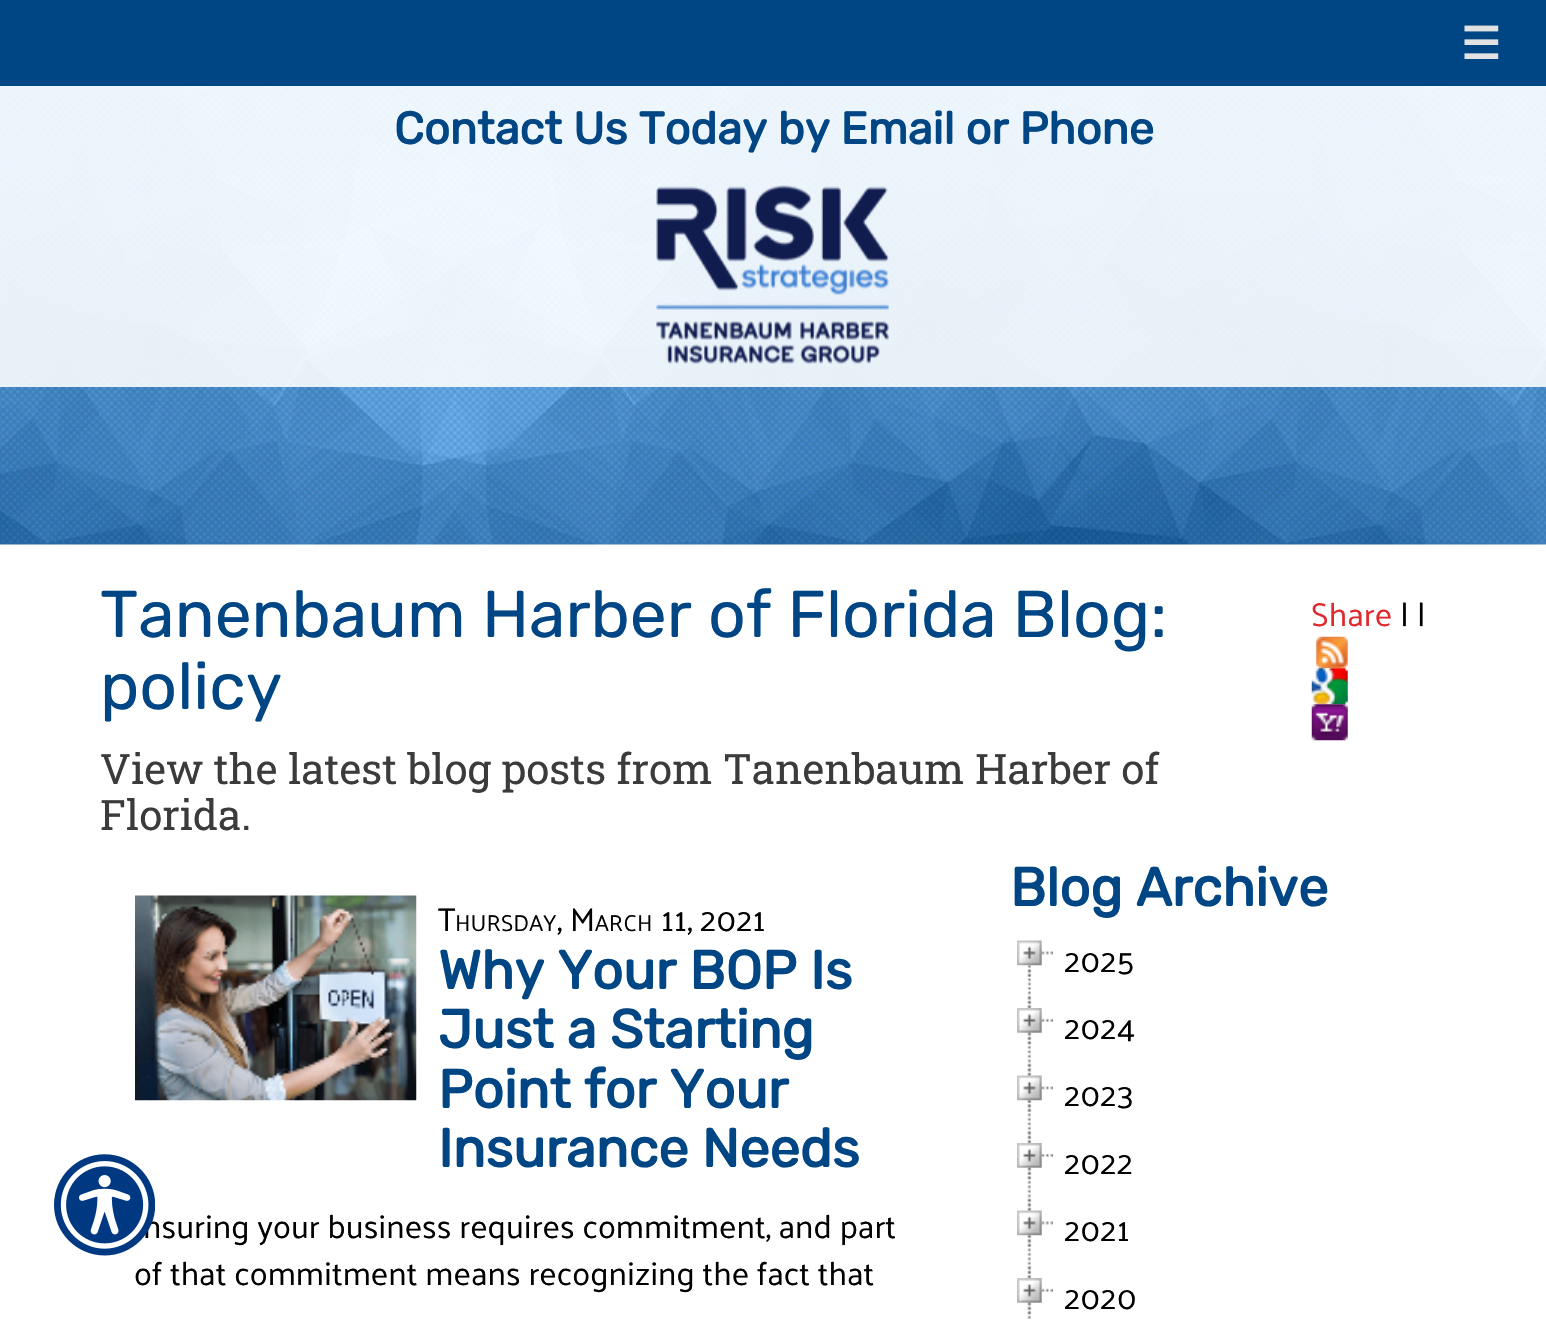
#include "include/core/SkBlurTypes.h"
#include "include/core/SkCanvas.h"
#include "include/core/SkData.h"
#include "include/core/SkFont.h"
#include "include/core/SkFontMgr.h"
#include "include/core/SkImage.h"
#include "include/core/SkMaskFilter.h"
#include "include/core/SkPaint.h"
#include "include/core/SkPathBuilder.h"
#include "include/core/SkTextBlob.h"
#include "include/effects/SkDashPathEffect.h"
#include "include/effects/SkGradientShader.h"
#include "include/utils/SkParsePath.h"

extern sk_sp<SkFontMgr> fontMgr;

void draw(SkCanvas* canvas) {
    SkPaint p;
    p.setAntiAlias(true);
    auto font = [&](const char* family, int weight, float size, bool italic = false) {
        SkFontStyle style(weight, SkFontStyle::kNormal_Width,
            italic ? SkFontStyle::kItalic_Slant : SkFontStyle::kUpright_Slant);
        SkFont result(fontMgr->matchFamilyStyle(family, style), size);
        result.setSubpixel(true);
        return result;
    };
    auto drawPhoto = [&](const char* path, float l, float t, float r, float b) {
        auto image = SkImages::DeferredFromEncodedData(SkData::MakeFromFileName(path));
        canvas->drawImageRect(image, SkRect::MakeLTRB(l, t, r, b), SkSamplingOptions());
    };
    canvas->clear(0xFFFFFFFF);
    drawPhoto("media/2.png", 0, 86, 1546, 545);
    p.setColor(0xE0FFFFFF);
    canvas->drawRect(SkRect::MakeLTRB(0, 86, 1546, 387), p);
    p.setColor(0xFF004684);
    canvas->drawRect(SkRect::MakeLTRB(0, 0, 1546, 86), p);
    auto font1 = font("DejaVu Sans", 700, 44);
    p.setColor(0xFFE2E2E2);
    canvas->drawString("☰", 1461, 59, font1, p);
    auto font2 = font("Rubik", 700, 45);
    p.setColor(0xFF004684);
    canvas->drawString("Contact Us Today by Email or Phone", 394, 144, font2, p);
    drawPhoto("media/1.png", 656, 185, 889, 364);
    auto font3 = font("Rubik", 300, 66);
    canvas->drawString("Tanenbaum Harber of Florida Blog:", 100, 637, font3, p);
    canvas->drawString("policy", 100, 709, font3, p);
    auto font4 = font("Palanquin", 400, 33);
    p.setColor(0xFFE0292E);
    canvas->drawString("Share", 1311, 626, font4, p);
    p.setColor(0xFF000000);
    canvas->drawString("| |", 1400, 626, font4, p);
    drawPhoto("media/3.png", 1316, 636, 1348, 669);
    drawPhoto("media/4.png", 1311, 668, 1348, 705);
    drawPhoto("media/5.png", 1311, 704, 1348, 741);
    auto font5 = font("Roboto Slab", 400, 42);
    p.setColor(0xFF3B3B3B);
    canvas->drawString("View the latest blog posts from Tanenbaum Harber of", 100, 784, font5, p);
    canvas->drawString("Florida.", 100, 830, font5, p);
    drawPhoto("media/6.png", 135, 895, 417, 1101);
    p.setColor(0xFF000000);
    canvas->drawString("T", 438, 931, font4, p);
    auto font6 = font("Palanquin", 400, 23);
    canvas->drawString("HURSDAY", 455, 931, font6, p);
    canvas->drawString(", M", 557, 931, font4, p);
    canvas->drawString("ARCH", 595, 931, font6, p);
    canvas->drawString("11, 2021", 661, 931, font4, p);
    auto font7 = font("Rubik", 700, 54);
    p.setColor(0xFF004684);
    {
        const struct { const char* s; float x, y; } items[] = {
            {"Why Your BOP Is", 438, 989},
            {"Just a Starting", 438, 1048},
            {"Point for Your", 438, 1108},
            {"Insurance Needs", 438, 1167},
        };
        for (auto [s, x, y] : items) {
            canvas->drawString(s, x, y, font7, p);
        }
    }
    p.setColor(0xFF000000);
    canvas->drawString("nsuring your business requires commitment, and part", 143, 1238, font4, p);
    canvas->drawString("of that commitment means recognizing the fact that", 134, 1285, font4, p);
    p.setColor(0xFF004684);
    canvas->drawString("Blog Archive", 1010, 906, font7, p);
    drawPhoto("media/7.png", 1027, 969, 1032, 995);
    drawPhoto("media/8.png", 1027, 951, 1053, 977);
    drawPhoto("media/9.png", 1017, 940, 1042, 966);
    p.setColor(0xFF000000);
    canvas->drawString("2025", 1064, 972, font4, p);
    drawPhoto("media/10.png", 1027, 994, 1032, 1062);
    drawPhoto("media/11.png", 1027, 996, 1053, 1044);
    drawPhoto("media/12.png", 1017, 1008, 1042, 1033);
    canvas->drawString("2024", 1064, 1039, font4, p);
    drawPhoto("media/13.png", 1027, 1062, 1032, 1130);
    drawPhoto("media/14.png", 1027, 1063, 1053, 1112);
    drawPhoto("media/15.png", 1017, 1075, 1042, 1101);
    canvas->drawString("2023", 1064, 1106, font4, p);
    drawPhoto("media/16.png", 1027, 1129, 1032, 1197);
    drawPhoto("media/17.png", 1027, 1131, 1053, 1179);
    drawPhoto("media/18.png", 1017, 1143, 1042, 1168);
    canvas->drawString("2022", 1064, 1174, font4, p);
    drawPhoto("media/13.png", 1027, 1197, 1032, 1265);
    drawPhoto("media/14.png", 1027, 1198, 1053, 1247);
    drawPhoto("media/15.png", 1017, 1210, 1042, 1236);
    canvas->drawString("2021", 1064, 1241, font4, p);
    drawPhoto("media/19.png", 1027, 1264, 1032, 1320);
    drawPhoto("media/11.png", 1027, 1266, 1053, 1314);
    drawPhoto("media/12.png", 1017, 1278, 1042, 1303);
    canvas->drawString("2020", 1064, 1309, font4, p);
    drawPhoto("media/20.png", 54, 1154, 155, 1256);
}
